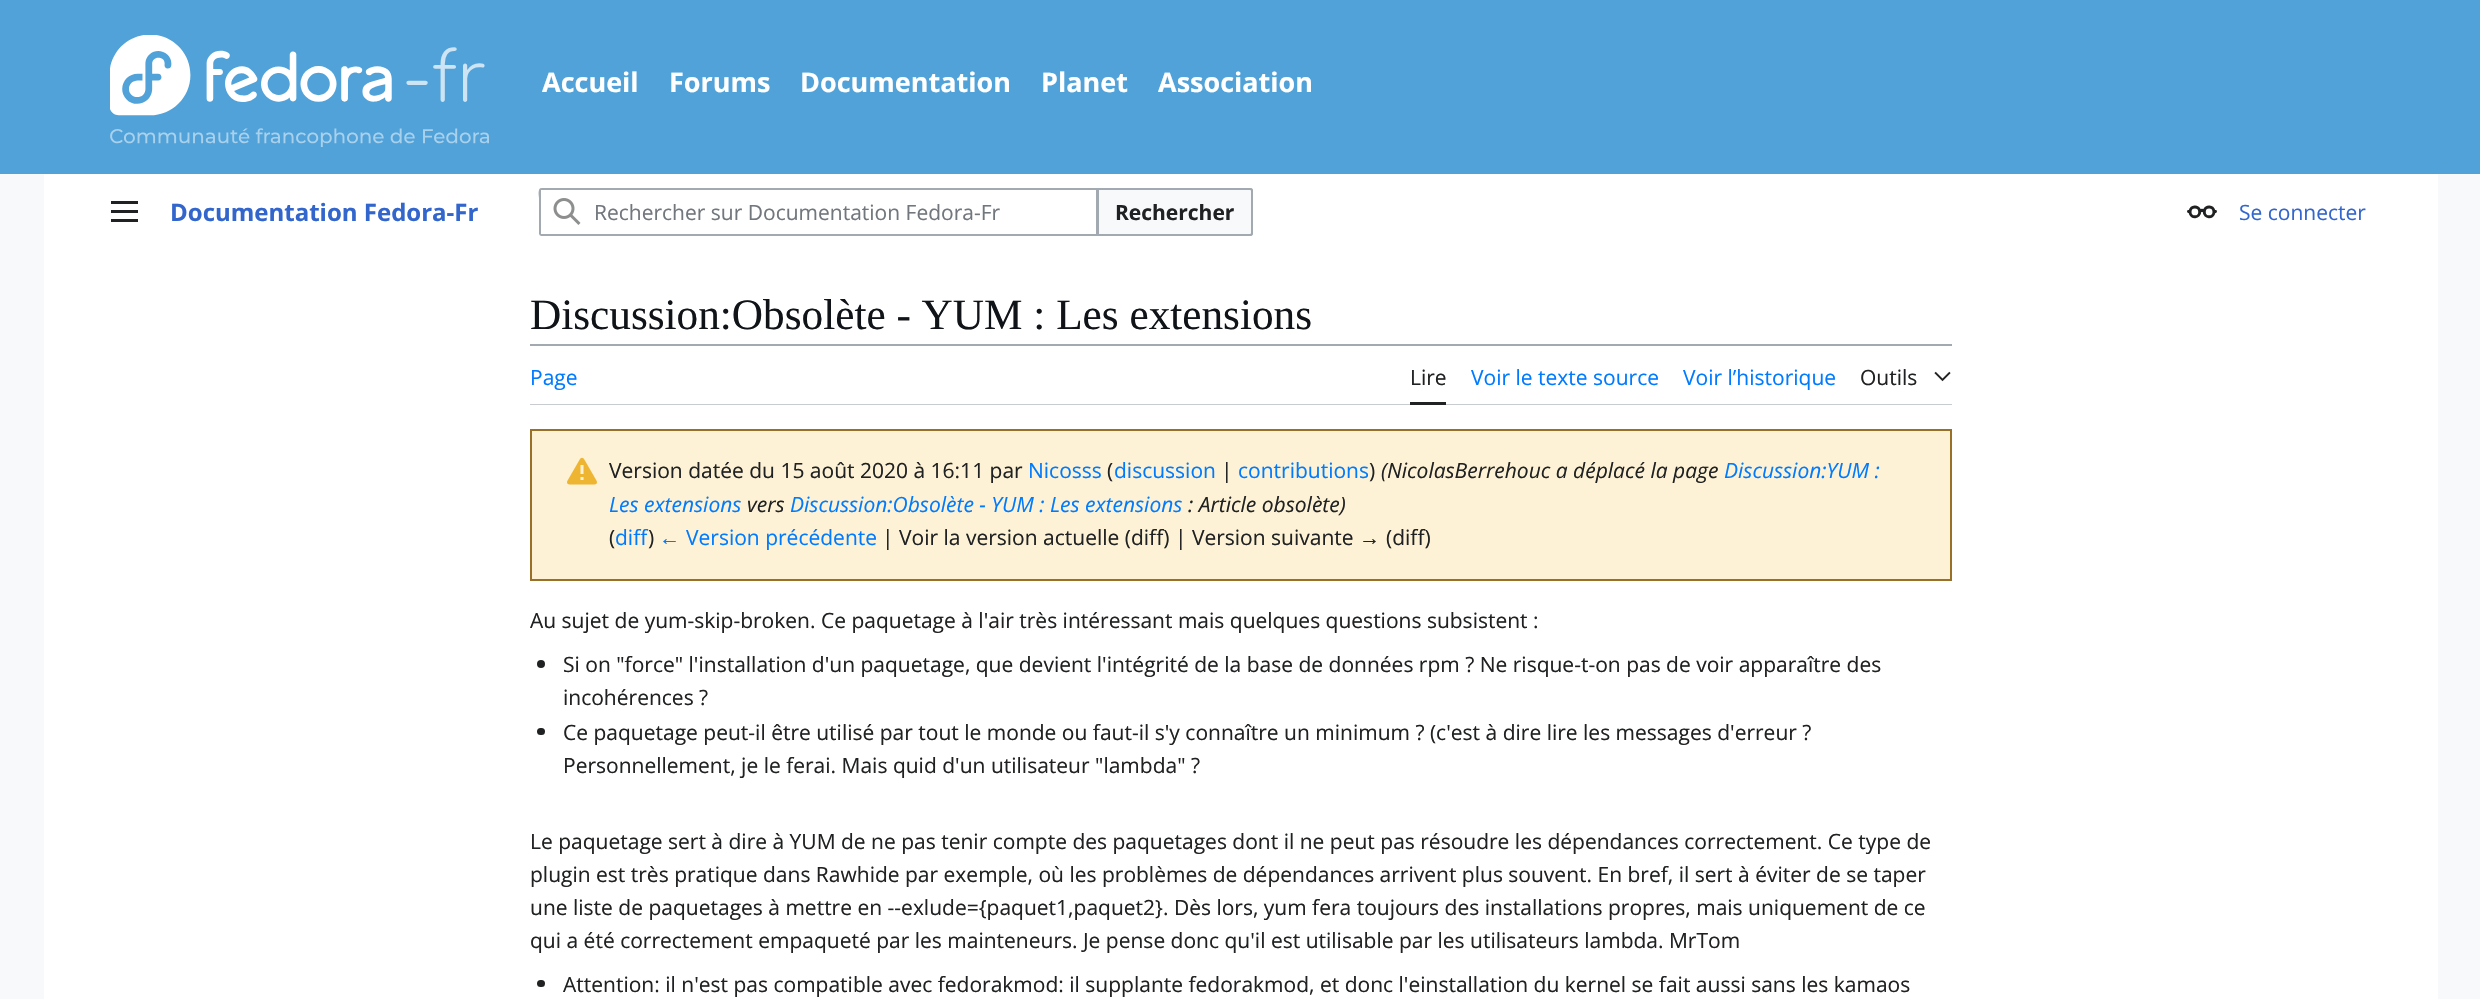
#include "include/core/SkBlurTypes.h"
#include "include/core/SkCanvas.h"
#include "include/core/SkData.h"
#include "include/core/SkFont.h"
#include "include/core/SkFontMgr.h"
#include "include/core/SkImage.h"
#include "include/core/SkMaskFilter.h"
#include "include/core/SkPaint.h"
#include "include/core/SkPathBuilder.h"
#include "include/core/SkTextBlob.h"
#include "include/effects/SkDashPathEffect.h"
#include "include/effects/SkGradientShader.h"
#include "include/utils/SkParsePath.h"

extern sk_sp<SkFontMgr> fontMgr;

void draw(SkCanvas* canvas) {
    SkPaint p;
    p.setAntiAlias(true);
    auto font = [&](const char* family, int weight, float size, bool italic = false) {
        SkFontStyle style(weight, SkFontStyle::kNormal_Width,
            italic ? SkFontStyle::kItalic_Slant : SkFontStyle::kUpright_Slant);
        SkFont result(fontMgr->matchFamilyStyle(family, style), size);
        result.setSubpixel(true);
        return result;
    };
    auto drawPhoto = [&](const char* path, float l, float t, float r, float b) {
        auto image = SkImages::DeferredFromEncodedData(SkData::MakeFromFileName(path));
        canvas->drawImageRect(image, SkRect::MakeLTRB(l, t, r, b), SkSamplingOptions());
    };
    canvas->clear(0xFFF8F9FA);
    p.setColor(0xFF51A2D9);
    canvas->drawRect(SkRect::MakeLTRB(0, 0, 2480, 174), p);
    drawPhoto("media/1.png", 110, 35, 489, 147);
    auto font1 = font("Open Sans", 700, 27);
    p.setColor(0xFFFFFFFF);
    {
        const struct { const char* s; float x, y; } items[] = {
            {"Accueil", 542, 92},
            {"Forums", 669, 92},
            {"Documentation", 800, 92},
            {"Planet", 1041, 92},
            {"Association", 1158, 92},
        };
        for (auto [s, x, y] : items) {
            canvas->drawString(s, x, y, font1, p);
        }
    }
    canvas->drawRect(SkRect::MakeLTRB(44, 174, 2438, 999), p);
    drawPhoto("media/2.png", 111, 201, 138, 222);
    auto font2 = font("Open Sans", 700, 24);
    p.setColor(0xFF3366CC);
    canvas->drawString("Documentation Fedora-Fr", 170, 221, font2, p);
    p.setStyle(SkPaint::kStroke_Style);
    p.setStrokeWidth(2);
    p.setColor(0xFFA2A9B1);
    canvas->drawRoundRect(SkRect::MakeLTRB(540, 189, 1252, 235), 2, 2, p);
    p.setStyle(SkPaint::kFill_Style);
    p.setColor(0xFFF8F9FA);
    canvas->drawPath(SkPathBuilder().moveTo(1098, 189).lineTo(1250, 189).cubicTo(1251, 189, 1252, 190, 1252, 191).lineTo(1252, 233).cubicTo(1252, 234, 1251, 235, 1250, 235).lineTo(1098, 235).close().detach(), p);
    p.setStyle(SkPaint::kStroke_Style);
    p.setColor(0xFFA2A9B1);
    canvas->drawPath(SkPathBuilder().moveTo(1098, 189).lineTo(1250, 189).cubicTo(1251, 189, 1252, 190, 1252, 191).lineTo(1252, 233).cubicTo(1252, 234, 1251, 235, 1250, 235).lineTo(1098, 235).close().detach(), p);
    p.setStyle(SkPaint::kFill_Style);
    p.setColor(0xFFFFFFFF);
    canvas->drawPath(SkPathBuilder().moveTo(542, 188).lineTo(1098, 188).lineTo(1098, 236).lineTo(542, 236).cubicTo(540.5f, 236, 539, 234.5f, 539, 233).lineTo(539, 191).cubicTo(539, 189.5f, 540.5f, 188, 542, 188).close().detach(), p);
    p.setColor(0xFFA2A9B1);
    canvas->drawPath(SkPathBuilder(SkPathFillType::kEvenOdd).moveTo(542, 188).cubicTo(537, 188, 539, 196, 539, 198).lineTo(539, 234).lineTo(541, 236).lineTo(1098, 236).lineTo(1098, 188).close().moveTo(541, 190).lineTo(541, 234).lineTo(1096, 234).lineTo(1096, 190).close().detach(), p);
    drawPhoto("media/3.png", 553, 198, 581, 225);
    auto font3 = font("Open Sans", 400, 21);
    p.setColor(0xFF72777D);
    canvas->drawString("Rechercher sur Documentation Fedora-Fr", 594, 220, font3, p);
    auto font4 = font("Open Sans", 700, 21);
    p.setColor(0xFF202122);
    canvas->drawString("Rechercher", 1115, 220, font4, p);
    drawPhoto("media/4.png", 2187, 205, 2217, 219);
    p.setColor(0xFF3366CC);
    canvas->drawString("Se connecter", 2239, 220, font3, p);
    auto font5 = font("Liberation Serif", 400, 43.25f);
    p.setColor(0xFF101418);
    canvas->drawString("Discussion:Obsolète - YUM : Les extensions", 530, 329, font5, p);
    p.setColor(0xFFA2A9B1);
    canvas->drawRect(SkRect::MakeLTRB(530, 344, 1952, 346), p);
    p.setColor(0xFFC8CCD1);
    canvas->drawPath(SkPathBuilder().moveTo(530, 404).lineTo(530, 405).lineTo(1952, 405).lineTo(1952, 347).lineTo(1952, 404).close().detach(), p);
    p.setColor(0xFF007BFF);
    canvas->drawString("Page", 530, 385, font3, p);
    p.setColor(0xFF202122);
    canvas->drawRect(SkRect::MakeLTRB(1410, 402, 1446, 405), p);
    canvas->drawString("Lire", 1410, 385, font3, p);
    p.setColor(0xFF007BFF);
    canvas->drawString("Voir le texte source", 1471, 385, font3, p);
    canvas->drawString("Voir l’historique", 1683, 385, font3, p);
    p.setColor(0xFF202122);
    canvas->drawString("Outils", 1860, 385, font3, p);
    drawPhoto("media/5.png", 1934, 371, 1951, 382);
    p.setColor(0xFFFDF2D5);
    canvas->drawRect(SkRect::MakeLTRB(531, 430, 1951, 580), p);
    p.setStyle(SkPaint::kStroke_Style);
    p.setColor(0xFF987027);
    canvas->drawRect(SkRect::MakeLTRB(531, 430, 1951, 580), p);
    drawPhoto("media/6.png", 567, 457, 597, 485);
    p.setStyle(SkPaint::kFill_Style);
    p.setColor(0xFF202122);
    canvas->drawString("Version datée du 15 août 2020 à 16:11 par", 609, 478, font3, p);
    p.setColor(0xFF007BFF);
    canvas->drawString("Nicosss", 1028, 478, font3, p);
    p.setColor(0xFF202122);
    canvas->drawString("(", 1107, 478, font3, p);
    p.setColor(0xFF007BFF);
    canvas->drawString("discussion", 1114, 478, font3, p);
    p.setColor(0xFF202122);
    canvas->drawString("|", 1221, 478, font3, p);
    p.setColor(0xFF007BFF);
    canvas->drawString("contributions", 1238, 478, font3, p);
    p.setColor(0xFF202122);
    canvas->drawString(")", 1369, 478, font3, p);
    auto font6 = font("Open Sans", 400, 21, true);
    canvas->drawString("(NicolasBerrehouc a déplacé la page", 1381, 478, font6, p);
    p.setColor(0xFF007BFF);
    canvas->drawString("Discussion:YUM :", 1724, 478, font6, p);
    canvas->drawString("Les extensions", 609, 512, font6, p);
    p.setColor(0xFF202122);
    canvas->drawString("vers", 747, 512, font6, p);
    p.setColor(0xFF007BFF);
    canvas->drawString("Discussion:Obsolète - YUM : Les extensions", 790, 512, font6, p);
    p.setColor(0xFF202122);
    canvas->drawString(": Article obsolète)", 1188, 512, font6, p);
    canvas->drawString("(", 609, 545, font3, p);
    p.setColor(0xFF007BFF);
    canvas->drawString("diff", 615, 545, font3, p);
    p.setColor(0xFF202122);
    canvas->drawString(")", 648, 545, font3, p);
    auto font7 = font("Liberation Sans", 400, 21);
    p.setColor(0xFF007BFF);
    canvas->drawString("←", 659, 545, font7, p);
    canvas->drawString("Version précédente", 686, 545, font3, p);
    p.setColor(0xFF202122);
    canvas->drawString("| Voir la version actuelle (diff) | Version suivante", 882, 545, font3, p);
    canvas->drawString("→", 1359, 545, font7, p);
    canvas->drawString("(diff)", 1386, 545, font3, p);
    canvas->drawString("Au sujet de yum-skip-broken. Ce paquetage à l'air très intéressant mais quelques questions subsistent :", 530, 628, font3, p);
    canvas->drawCircle(541, 664, 4, p);
    canvas->drawString("Si on \"force\" l'installation d'un paquetage, que devient l'intégrité de la base de données rpm ? Ne risque-t-on pas de voir apparaître des", 563, 672, font3, p);
    canvas->drawString("incohérences ?", 563, 705, font3, p);
    canvas->drawRoundRect(SkRect::MakeLTRB(537, 728, 545, 735), 3.5f, 3.5f, p);
    {
        const struct { const char* s; float x, y; } items[] = {
            {"Ce paquetage peut-il être utilisé par tout le monde ou faut-il s'y connaître un minimum ? (c'est à dire lire les messages d'erreur ?", 563, 740},
            {"Personnellement, je le ferai. Mais quid d'un utilisateur \"lambda\" ?", 563, 773},
            {"Le paquetage sert à dire à YUM de ne pas tenir compte des paquetages dont il ne peut pas résoudre les dépendances correctement. Ce type de", 530, 849},
            {"plugin est très pratique dans Rawhide par exemple, où les problèmes de dépendances arrivent plus souvent. En bref, il sert à éviter de se taper", 530, 882},
            {"une liste de paquetages à mettre en --exlude={paquet1,paquet2}. Dès lors, yum fera toujours des installations propres, mais uniquement de ce", 530, 915},
            {"qui a été correctement empaqueté par les mainteneurs. Je pense donc qu'il est utilisable par les utilisateurs lambda. MrTom", 530, 948},
        };
        for (auto [s, x, y] : items) {
            canvas->drawString(s, x, y, font3, p);
        }
    }
    canvas->drawRoundRect(SkRect::MakeLTRB(537, 980, 545, 987), 3.5f, 3.5f, p);
    canvas->drawString("Attention: il n'est pas compatible avec fedorakmod: il supplante fedorakmod, et donc l'einstallation du kernel se fait aussi sans les kamaos", 563, 992, font3, p);
}
